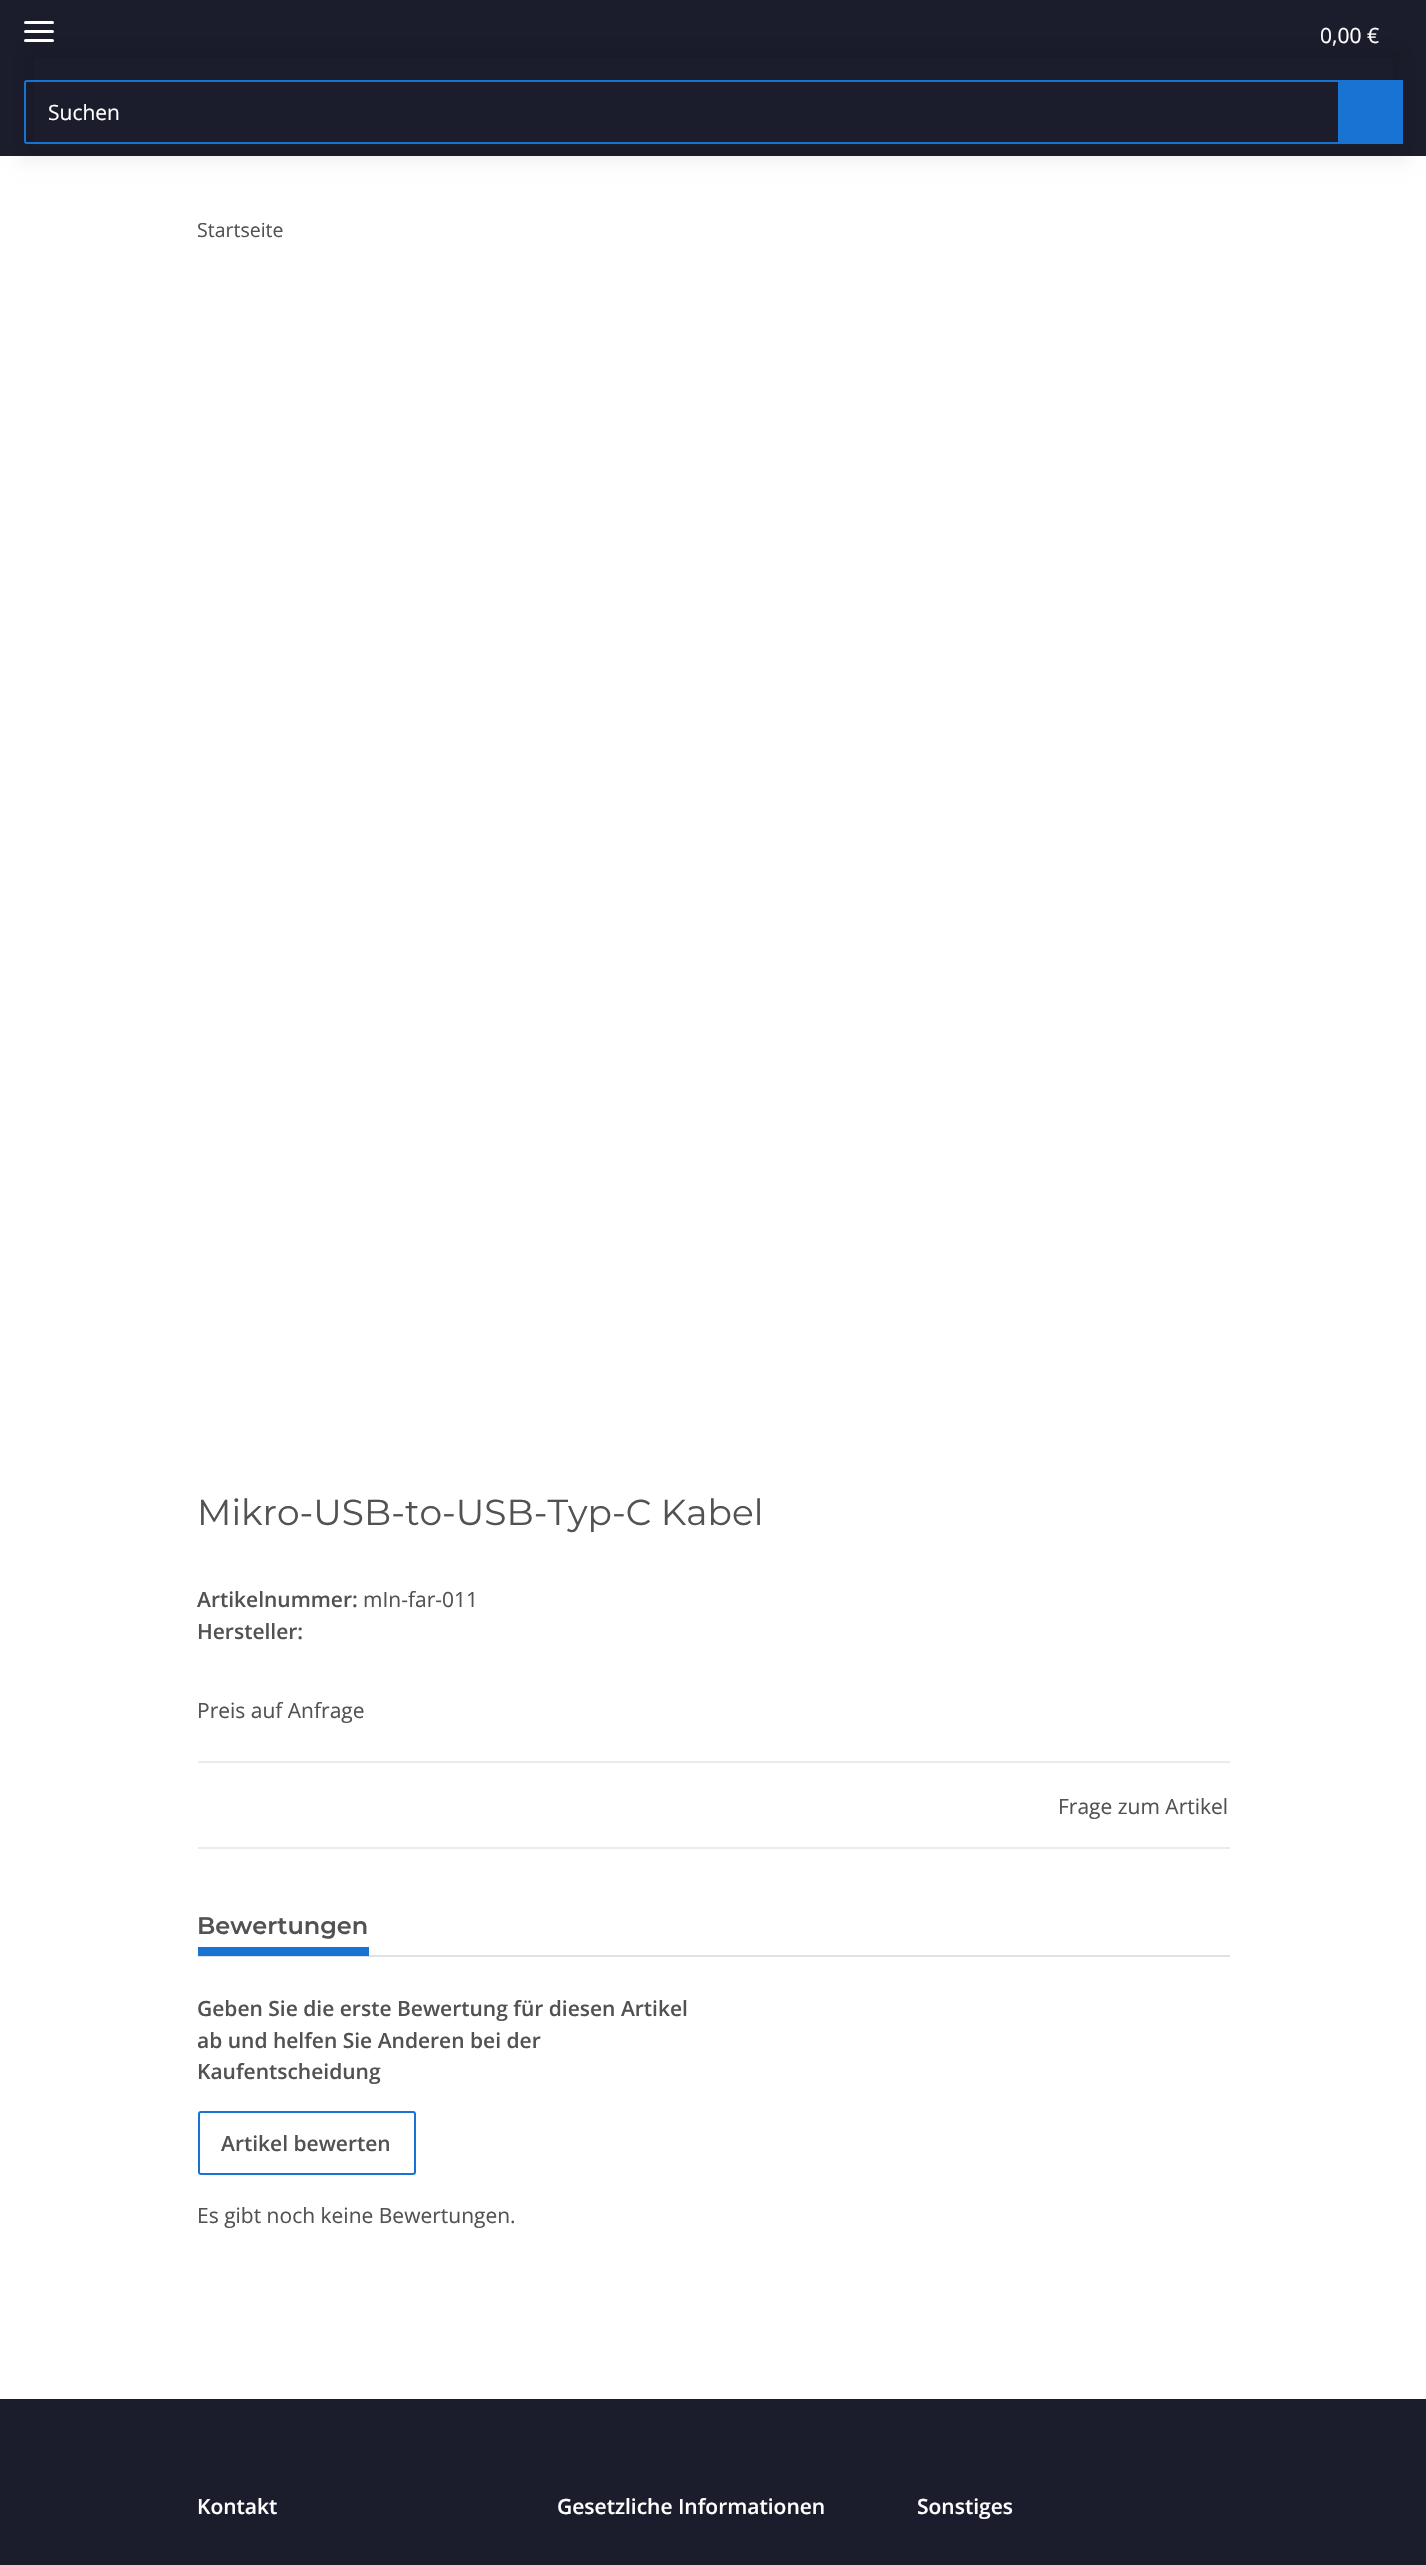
#include "include/core/SkBlurTypes.h"
#include "include/core/SkCanvas.h"
#include "include/core/SkData.h"
#include "include/core/SkFont.h"
#include "include/core/SkFontMgr.h"
#include "include/core/SkImage.h"
#include "include/core/SkMaskFilter.h"
#include "include/core/SkPaint.h"
#include "include/core/SkPathBuilder.h"
#include "include/core/SkTextBlob.h"
#include "include/effects/SkDashPathEffect.h"
#include "include/effects/SkGradientShader.h"
#include "include/utils/SkParsePath.h"

extern sk_sp<SkFontMgr> fontMgr;

void draw(SkCanvas* canvas) {
    SkPaint p;
    p.setAntiAlias(true);
    auto font = [&](const char* family, int weight, float size, bool italic = false) {
        SkFontStyle style(weight, SkFontStyle::kNormal_Width,
            italic ? SkFontStyle::kItalic_Slant : SkFontStyle::kUpright_Slant);
        SkFont result(fontMgr->matchFamilyStyle(family, style), size);
        result.setSubpixel(true);
        return result;
    };
    canvas->clear(0xFF1C1D2C);
    p.setColor(0xFFFFFFFF);
    canvas->drawRect(SkRect::MakeLTRB(0, 156, 1426, 2399), p);
    p.setColor(0x0F000000);
    p.setMaskFilter(SkMaskFilter::MakeBlur(kNormal_SkBlurStyle, 7));
    canvas->drawRect(SkRect::MakeLTRB(18, 42, 1409, 162), p);
    p.setMaskFilter(nullptr);
    p.setColor(0xFF1C1D2C);
    canvas->drawRect(SkRect::MakeLTRB(34, 58, 1393, 146), p);
    p.setColor(0xFFFFFFFF);
    canvas->drawRoundRect(SkRect::MakeLTRB(24, 30, 54, 33), 1.5f, 1.5f, p);
    canvas->drawRoundRect(SkRect::MakeLTRB(24, 21, 54, 24), 1.5f, 1.5f, p);
    canvas->drawRoundRect(SkRect::MakeLTRB(24, 39, 54, 42), 1.5f, 1.5f, p);
    auto font1 = font("Open Sans", 400, 21);
    canvas->drawString("0,00 €", 1320, 43, font1, p);
    p.setStyle(SkPaint::kStroke_Style);
    p.setStrokeWidth(2);
    p.setColor(0xFF1973D3);
    canvas->drawPath(SkPathBuilder().moveTo(27, 81).lineTo(1339, 81).lineTo(1339, 143).lineTo(27, 143).cubicTo(26, 143, 25, 142, 25, 141).lineTo(25, 83).cubicTo(25, 82, 26, 81, 27, 81).close().detach(), p);
    p.setStyle(SkPaint::kFill_Style);
    p.setColor(0xFFFFFFFF);
    canvas->drawString("Suchen", 48, 120, font1, p);
    p.setColor(0xFF1973D3);
    canvas->drawRect(SkRect::MakeLTRB(1340, 80, 1403, 144), p);
    auto font2 = font("Open Sans", 400, 19.5f);
    p.setColor(0xFF525252);
    canvas->drawString("Startseite", 197, 237, font2, p);
    auto font3 = font("Montserrat", 400, 36);
    canvas->drawString("Mikro-USB-to-USB-Typ-C Kabel", 197, 1525, font3, p);
    auto font4 = font("Open Sans", 600, 21);
    canvas->drawString("Artikelnummer:", 197, 1607, font4, p);
    canvas->drawString("mIn-far-011", 363, 1607, font1, p);
    canvas->drawString("Hersteller:", 197, 1639, font4, p);
    canvas->drawString("Preis auf Anfrage", 197, 1718, font1, p);
    p.setColor(0xFFEBEBEB);
    canvas->drawRect(SkRect::MakeLTRB(198, 1761, 1230, 1763), p);
    canvas->drawRect(SkRect::MakeLTRB(198, 1847, 1230, 1849), p);
    p.setColor(0xFF525252);
    canvas->drawString("Frage zum Artikel", 1058, 1814, font1, p);
    p.setColor(0xFFDEE2E6);
    canvas->drawRect(SkRect::MakeLTRB(198, 1955, 1230, 1957), p);
    auto font5 = font("Montserrat", 600, 24);
    p.setColor(0xFF525252);
    canvas->drawString("Bewertungen", 197, 1934, font5, p);
    p.setColor(0xFF1973D3);
    canvas->drawRect(SkRect::MakeLTRB(198, 1947, 369, 1956), p);
    p.setColor(0xFF525252);
    {
        const struct { const char* s; float x, y; } items[] = {
            {"Geben Sie die erste Bewertung für diesen Artikel", 197, 2016},
            {"ab und helfen Sie Anderen bei der", 197, 2048},
            {"Kaufentscheidung", 197, 2079},
        };
        for (auto [s, x, y] : items) {
            canvas->drawString(s, x, y, font4, p);
        }
    }
    p.setStyle(SkPaint::kStroke_Style);
    p.setColor(0xFF1973D3);
    canvas->drawRoundRect(SkRect::MakeLTRB(199, 2112, 415, 2174), 2, 2, p);
    p.setStyle(SkPaint::kFill_Style);
    p.setColor(0xFF525252);
    canvas->drawString("Artikel bewerten", 221, 2151, font4, p);
    canvas->drawString("Es gibt noch keine Bewertungen.", 197, 2223, font1, p);
    p.setColor(0xFFFFFFFF);
    {
        const struct { const char* s; float x, y; } items[] = {
            {"Kontakt", 197, 2514},
            {"Gesetzliche Informationen", 557, 2514},
            {"Sonstiges", 917, 2514},
        };
        for (auto [s, x, y] : items) {
            canvas->drawString(s, x, y, font4, p);
        }
    }
}
